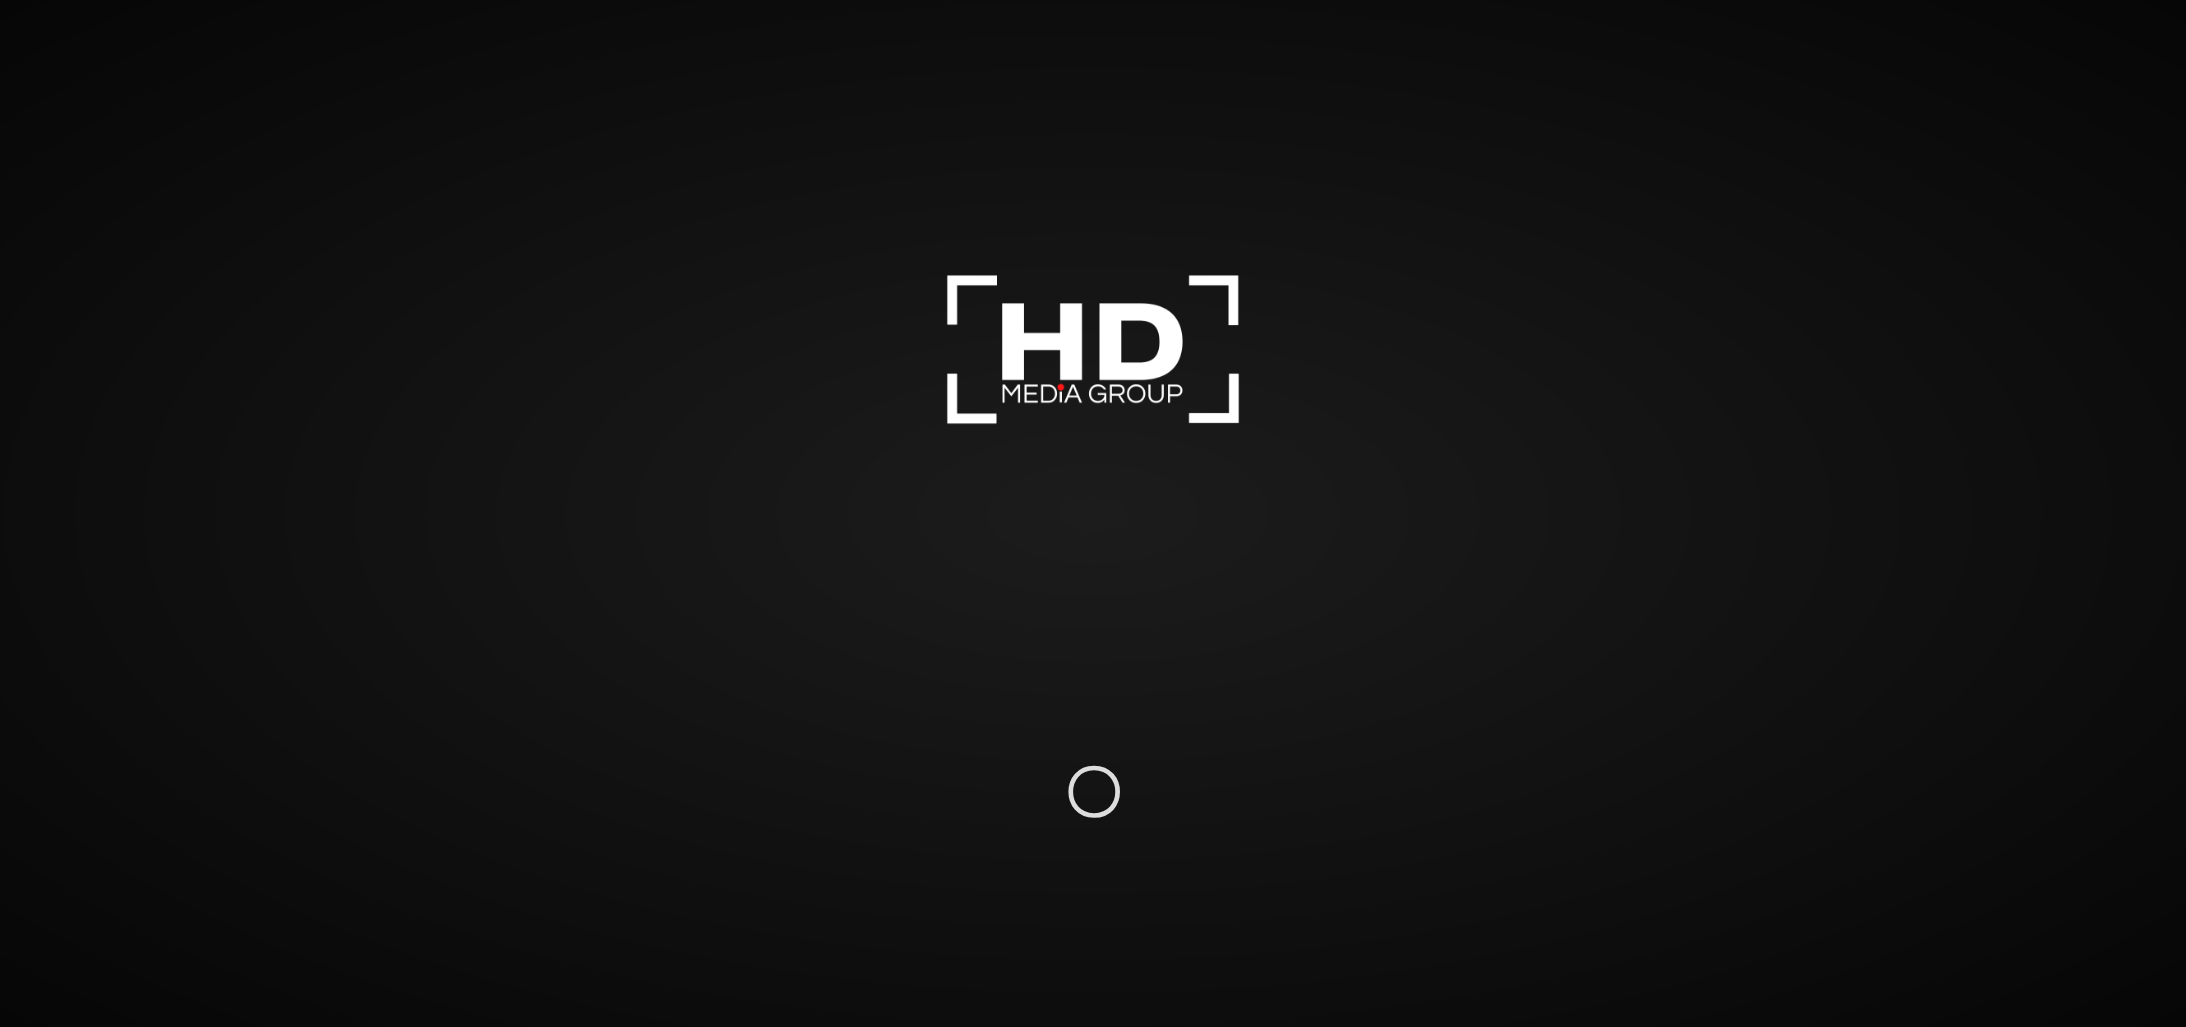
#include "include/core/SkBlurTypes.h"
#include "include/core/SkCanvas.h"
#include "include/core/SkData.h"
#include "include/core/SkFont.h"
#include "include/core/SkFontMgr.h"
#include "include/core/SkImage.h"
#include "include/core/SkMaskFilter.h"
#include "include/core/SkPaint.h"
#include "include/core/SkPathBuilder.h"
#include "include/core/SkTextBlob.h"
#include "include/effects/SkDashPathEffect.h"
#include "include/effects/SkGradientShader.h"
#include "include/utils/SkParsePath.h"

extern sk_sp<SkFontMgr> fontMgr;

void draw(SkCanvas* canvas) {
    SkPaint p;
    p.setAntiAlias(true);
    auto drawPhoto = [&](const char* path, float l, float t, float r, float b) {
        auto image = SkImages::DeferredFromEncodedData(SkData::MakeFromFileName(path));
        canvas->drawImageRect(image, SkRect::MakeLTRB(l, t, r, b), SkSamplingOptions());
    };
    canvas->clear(0xFFFFFFFF);
    {
        const SkColor colors[] = {0xFF1C1C1C, 0xFF060606};
        const float stops[] = {0, 1};
        SkMatrix m = SkMatrix::Translate(1093, 514).preScale(1546, 727);
        p.setShader(SkGradientShader::MakeRadial({0, 0}, 1, colors, stops, 2, SkTileMode::kClamp, 0, &m));
        p.setAlpha(255);
    }
    canvas->drawRect(SkRect::MakeLTRB(0, 0, 2186, 1027), p);
    drawPhoto("media/1.png", 946, 275, 1240, 425);
    p.setStyle(SkPaint::kStroke_Style);
    p.setStrokeWidth(4.7f);
    p.setShader(nullptr);
    p.setColor(0xFFDDDDDD);
    canvas->drawPath(SkPathBuilder().moveTo(1094, 768).cubicTo(1125.5f, 768, 1125.5f, 815.5f, 1094, 815.5f).cubicTo(1063, 815.5f, 1063, 768, 1094, 768).close().detach(), p);
}
